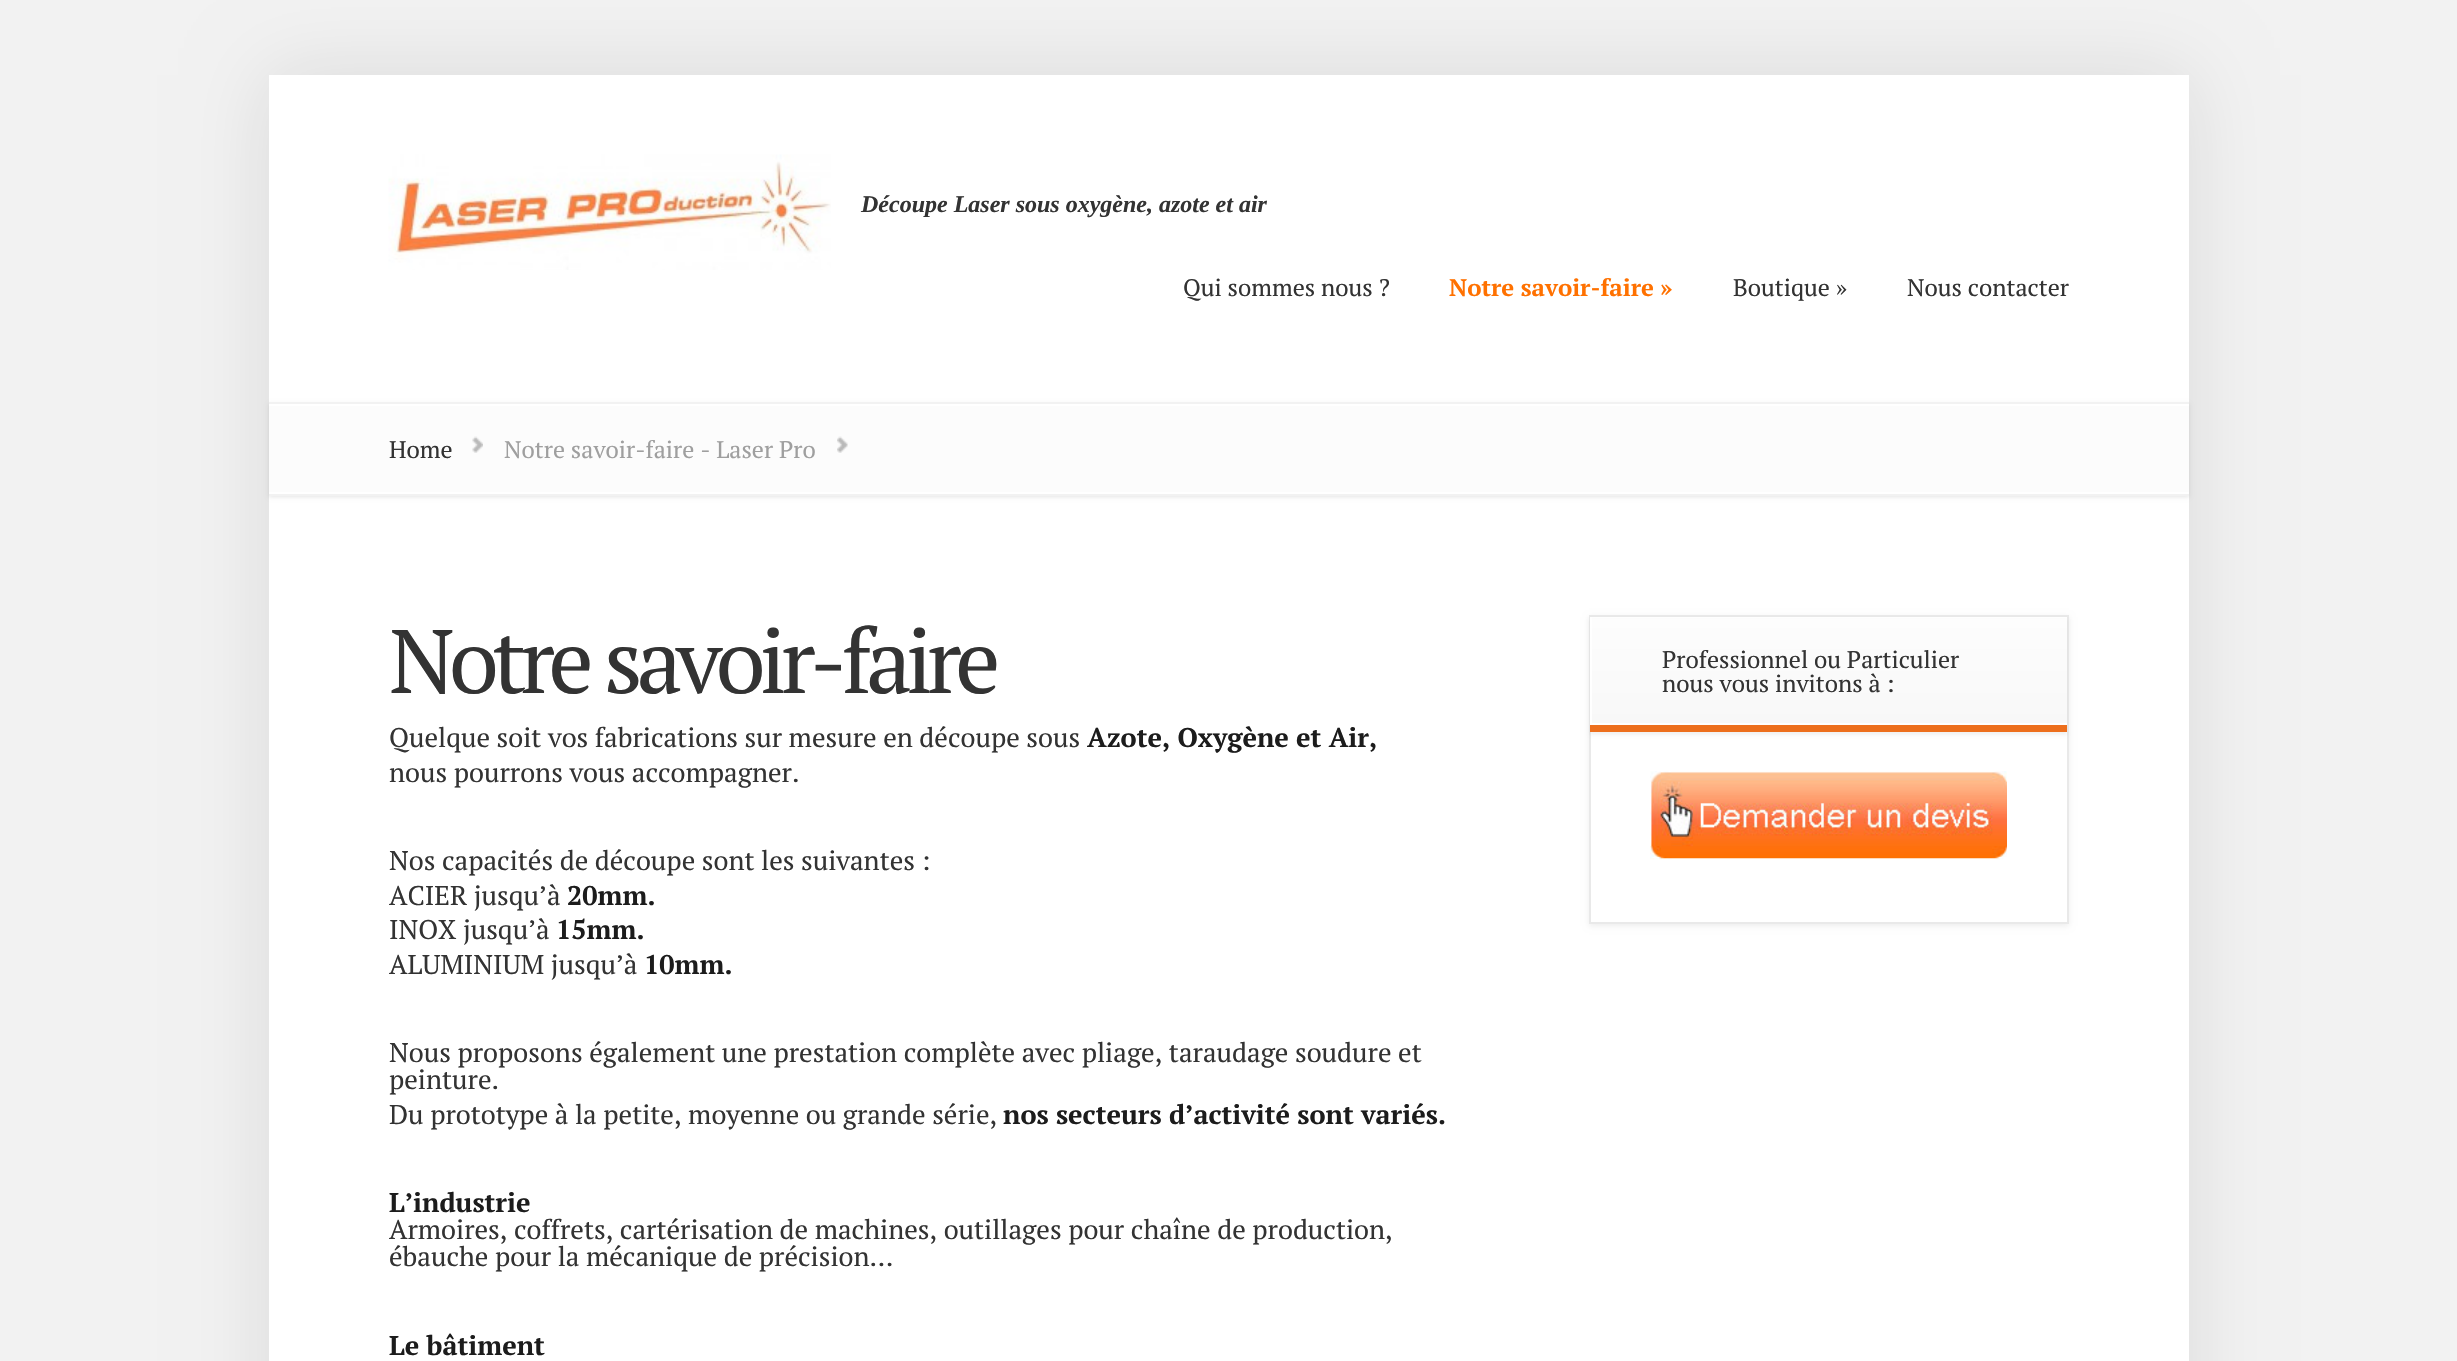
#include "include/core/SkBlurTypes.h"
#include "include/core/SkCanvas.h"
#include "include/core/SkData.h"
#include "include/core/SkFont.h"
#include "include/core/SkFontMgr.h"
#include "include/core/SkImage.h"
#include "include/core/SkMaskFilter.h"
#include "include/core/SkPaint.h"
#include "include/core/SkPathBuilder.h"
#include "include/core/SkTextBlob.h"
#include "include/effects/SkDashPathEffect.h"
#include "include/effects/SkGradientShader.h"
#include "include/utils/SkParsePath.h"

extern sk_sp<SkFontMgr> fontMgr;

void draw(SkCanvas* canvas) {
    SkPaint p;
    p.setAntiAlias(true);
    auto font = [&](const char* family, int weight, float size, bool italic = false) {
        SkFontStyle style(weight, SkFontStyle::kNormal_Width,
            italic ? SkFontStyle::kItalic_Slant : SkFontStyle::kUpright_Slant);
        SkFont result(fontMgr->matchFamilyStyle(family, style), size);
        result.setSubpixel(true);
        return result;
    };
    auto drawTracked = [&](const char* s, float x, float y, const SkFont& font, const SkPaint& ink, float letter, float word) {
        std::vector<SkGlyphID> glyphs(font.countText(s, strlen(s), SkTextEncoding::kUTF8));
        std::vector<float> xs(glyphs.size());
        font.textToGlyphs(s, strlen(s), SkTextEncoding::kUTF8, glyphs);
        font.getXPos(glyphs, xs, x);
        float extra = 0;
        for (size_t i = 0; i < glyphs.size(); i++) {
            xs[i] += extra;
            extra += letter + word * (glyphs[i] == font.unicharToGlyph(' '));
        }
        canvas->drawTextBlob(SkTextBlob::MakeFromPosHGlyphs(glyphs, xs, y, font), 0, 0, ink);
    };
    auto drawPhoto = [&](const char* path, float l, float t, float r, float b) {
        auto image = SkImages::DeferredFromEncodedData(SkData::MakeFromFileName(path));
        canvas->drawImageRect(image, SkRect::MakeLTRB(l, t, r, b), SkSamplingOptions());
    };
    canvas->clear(0xFFF2F2F2);
    p.setColor(0x1A000000);
    p.setMaskFilter(SkMaskFilter::MakeBlur(kNormal_SkBlurStyle, 37.5f));
    canvas->drawRect(SkRect::MakeLTRB(269, 75, 2189, 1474), p);
    p.setMaskFilter(nullptr);
    p.setColor(0xFFFFFFFF);
    canvas->drawRect(SkRect::MakeLTRB(269, 75, 2189, 1361), p);
    drawPhoto("media/1.png", 388, 154, 831, 270);
    auto font1 = font("Liberation Serif", 700, 24, true);
    p.setColor(0xFF333333);
    canvas->drawString("Découpe Laser sous oxygène, azote et air", 861, 212, font1, p);
    auto font2 = font("PT Serif", 400, 24);
    canvas->drawString("Qui sommes nous ?", 1183, 296, font2, p);
    auto font3 = font("PT Serif", 700, 24);
    p.setColor(0xFFFF7100);
    canvas->drawString("Notre savoir-faire »", 1449, 296, font3, p);
    p.setColor(0xFF333333);
    canvas->drawString("Boutique »", 1733, 296, font2, p);
    canvas->drawString("Nous contacter", 1907, 296, font2, p);
    p.setColor(0x1A000000);
    p.setMaskFilter(SkMaskFilter::MakeBlur(kNormal_SkBlurStyle, 2));
    canvas->drawRect(SkRect::MakeLTRB(269, 404, 2189, 497), p);
    p.setMaskFilter(nullptr);
    {
        const struct { float l, t, r, b; SkColor color; } items[] = {
            {269, 406, 2189, 492, 0xFFFCFCFC},
            {269, 492, 2189, 494, 0xFFFFFFFF},
            {269, 404, 2189, 406, 0xFFFFFFFF},
            {269, 402, 2189, 404, 0xFFF2F2F2},
            {269, 494, 2189, 496, 0xFFF2F2F2},
        };
        for (auto [l, t, r, b, color] : items) {
            p.setColor(color);
            canvas->drawRect(SkRect::MakeLTRB(l, t, r, b), p);
        }
    }
    p.setColor(0xFF333333);
    canvas->drawString("Home", 389, 458, font2, p);
    drawPhoto("media/2.png", 472, 436, 483, 453);
    p.setColor(0xFF9F9F9F);
    canvas->drawString("Notre savoir-faire - Laser Pro", 504, 458, font2, p);
    drawPhoto("media/3.png", 837, 436, 848, 453);
    auto font4 = font("PT Serif", 400, 90);
    p.setColor(0xFF333333);
    drawTracked("Notre savoir-faire", 389, 693, font4, p, -6, 0);
    auto font5 = font("PT Serif", 400, 27);
    canvas->drawString("Quelque soit vos fabrications sur mesure en découpe sous", 389, 747, font5, p);
    auto font6 = font("PT Serif", 700, 27);
    p.setColor(0xFF1C1C1C);
    canvas->drawString("Azote, Oxygène et Air,", 1087, 747, font6, p);
    p.setColor(0xFF333333);
    {
        const struct { const char* s; float x, y; } items[] = {
            {"nous pourrons vous accompagner.", 389, 782},
            {"Nos capacités de découpe sont les suivantes :", 389, 870},
            {"ACIER jusqu’à", 389, 905},
        };
        for (auto [s, x, y] : items) {
            canvas->drawString(s, x, y, font5, p);
        }
    }
    p.setColor(0xFF1C1C1C);
    canvas->drawString("20mm.", 567, 905, font6, p);
    p.setColor(0xFF333333);
    canvas->drawString("INOX jusqu’à", 389, 939, font5, p);
    p.setColor(0xFF1C1C1C);
    canvas->drawString("15mm.", 556, 939, font6, p);
    p.setColor(0xFF333333);
    canvas->drawString("ALUMINIUM jusqu’à", 389, 974, font5, p);
    p.setColor(0xFF1C1C1C);
    canvas->drawString("10mm.", 644, 974, font6, p);
    p.setColor(0xFF333333);
    {
        const struct { const char* s; float x, y; } items[] = {
            {"Nous proposons également une prestation complète avec pliage, taraudage soudure et", 389, 1062},
            {"peinture.", 389, 1089},
            {"Du prototype à la petite, moyenne ou grande série,", 389, 1124},
        };
        for (auto [s, x, y] : items) {
            canvas->drawString(s, x, y, font5, p);
        }
    }
    p.setColor(0xFF1C1C1C);
    canvas->drawString("nos secteurs d’activité sont variés.", 1003, 1124, font6, p);
    canvas->drawString("L’industrie", 389, 1212, font6, p);
    p.setColor(0xFF333333);
    canvas->drawString("Armoires, coffrets, cartérisation de machines, outillages pour chaîne de production,", 389, 1239, font5, p);
    canvas->drawString("ébauche pour la mécanique de précision…", 389, 1266, font5, p);
    p.setColor(0xFF1C1C1C);
    canvas->drawString("Le bâtiment", 389, 1355, font6, p);
    canvas->save();
    canvas->clipPath(SkPathBuilder(SkPathFillType::kEvenOdd).moveTo(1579, 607).lineTo(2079, 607).lineTo(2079, 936).lineTo(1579, 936).close().moveTo(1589, 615).lineTo(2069, 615).lineTo(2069, 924).lineTo(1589, 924).close().detach(), true);
    p.setColor(0x12000000);
    p.setMaskFilter(SkMaskFilter::MakeBlur(kNormal_SkBlurStyle, 3));
    canvas->drawRect(SkRect::MakeLTRB(1589, 617, 2069, 926), p);
    p.setMaskFilter(nullptr);
    canvas->restore();
    p.setStyle(SkPaint::kStroke_Style);
    p.setStrokeWidth(2);
    p.setColor(0xFFE9E9E9);
    canvas->drawRect(SkRect::MakeLTRB(1590, 616, 2068, 923), p);
    p.setStyle(SkPaint::kFill_Style);
    p.setColor(0x0D000000);
    p.setMaskFilter(SkMaskFilter::MakeBlur(kNormal_SkBlurStyle, 1.5f));
    canvas->drawRect(SkRect::MakeLTRB(1590, 620, 2067, 735), p);
    p.setMaskFilter(nullptr);
    {
        const SkColor colors[] = {0xFFFDFDFD, 0xFFF8F8F8};
        const float stops[] = {0, 1};
        const SkPoint ends[] = {{1829, 617}, {1829, 725}};
        p.setShader(SkGradientShader::MakeLinear(ends, colors, stops, 2, SkTileMode::kClamp));
        p.setAlpha(255);
    }
    canvas->drawRect(SkRect::MakeLTRB(1592, 619, 2067, 723), p);
    canvas->save();
    canvas->clipRect(SkRect::MakeLTRB(1590, 617, 2067, 725));
    p.setShader(nullptr);
    p.setColor(0xFFFFFFFF);
    canvas->drawPath(SkPathBuilder(SkPathFillType::kEvenOdd).moveTo(1442, 468).lineTo(2216, 468).lineTo(2216, 873).lineTo(1442, 873).close().moveTo(1592, 615).lineTo(2068, 615).lineTo(2068, 723).lineTo(1592, 723).close().detach(), p);
    canvas->restore();
    p.setColor(0xFFED6F1D);
    canvas->drawRect(SkRect::MakeLTRB(1590, 725, 2067, 732), p);
    p.setColor(0xFF333333);
    canvas->drawString("Professionnel ou Particulier", 1662, 668, font2, p);
    canvas->drawString("nous vous invitons à :", 1662, 692, font2, p);
    drawPhoto("media/4.png", 1650, 771, 2007, 860);
}
